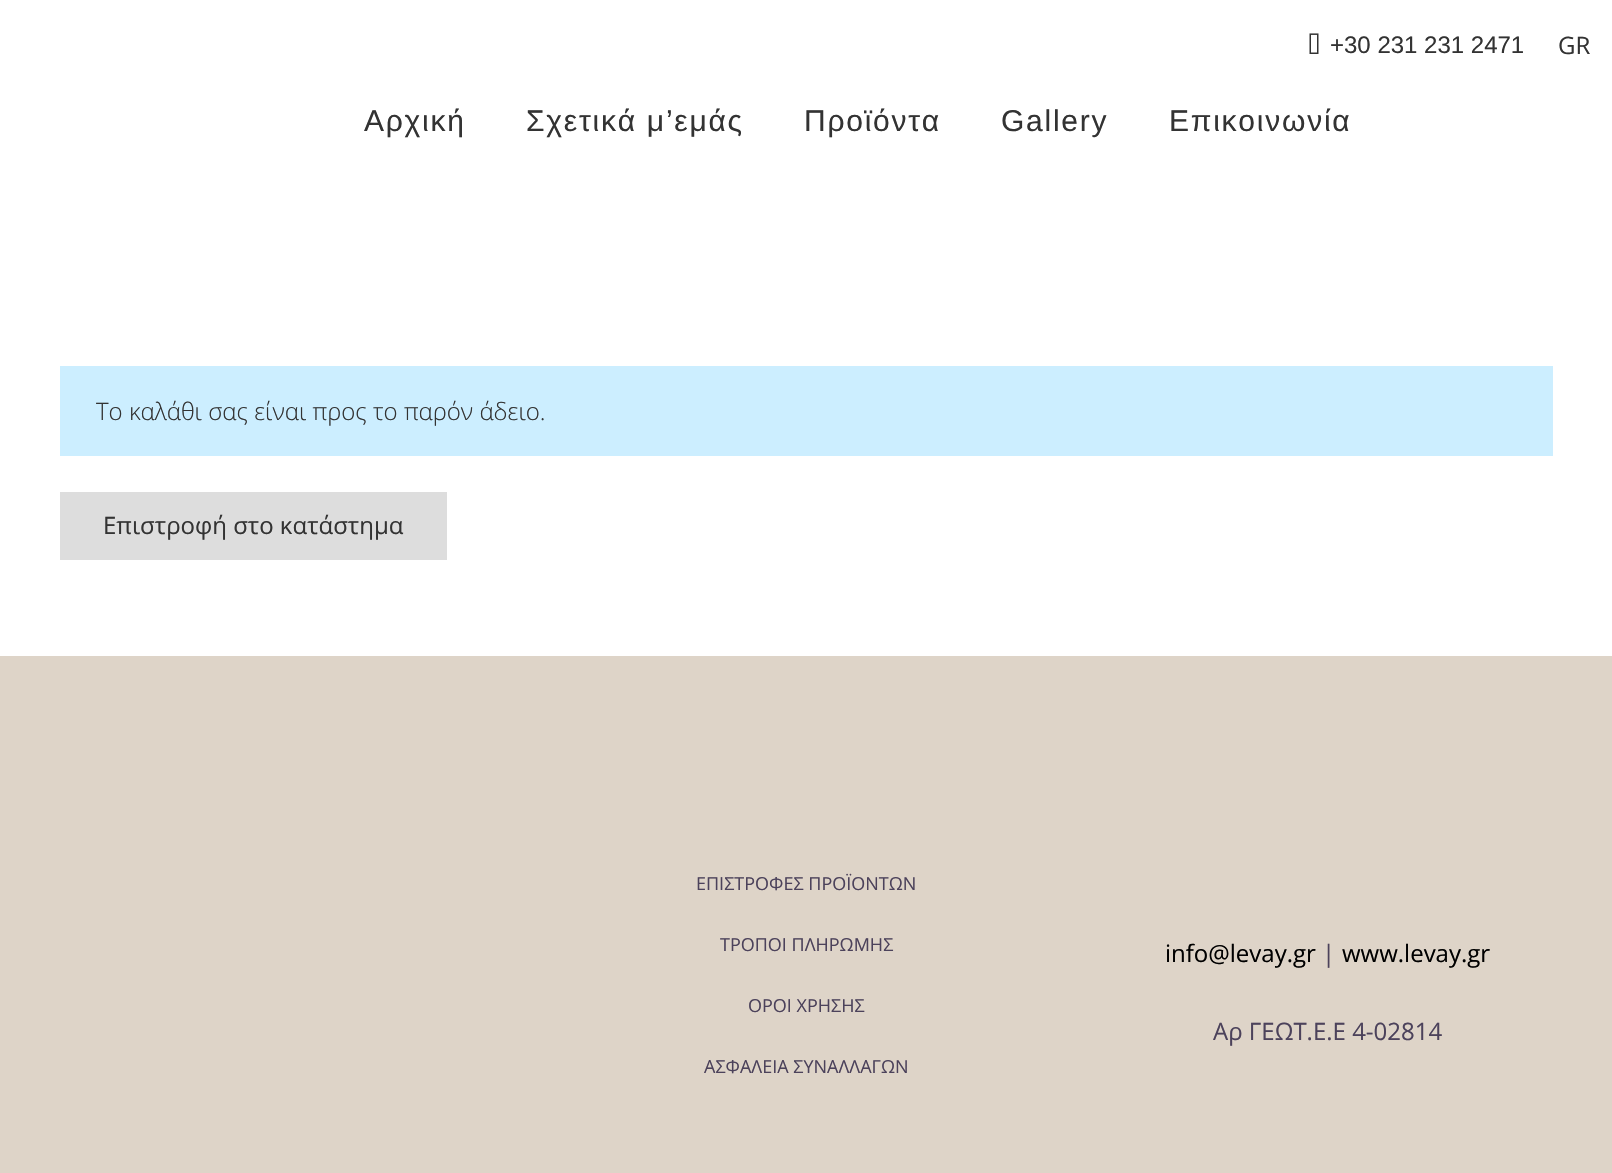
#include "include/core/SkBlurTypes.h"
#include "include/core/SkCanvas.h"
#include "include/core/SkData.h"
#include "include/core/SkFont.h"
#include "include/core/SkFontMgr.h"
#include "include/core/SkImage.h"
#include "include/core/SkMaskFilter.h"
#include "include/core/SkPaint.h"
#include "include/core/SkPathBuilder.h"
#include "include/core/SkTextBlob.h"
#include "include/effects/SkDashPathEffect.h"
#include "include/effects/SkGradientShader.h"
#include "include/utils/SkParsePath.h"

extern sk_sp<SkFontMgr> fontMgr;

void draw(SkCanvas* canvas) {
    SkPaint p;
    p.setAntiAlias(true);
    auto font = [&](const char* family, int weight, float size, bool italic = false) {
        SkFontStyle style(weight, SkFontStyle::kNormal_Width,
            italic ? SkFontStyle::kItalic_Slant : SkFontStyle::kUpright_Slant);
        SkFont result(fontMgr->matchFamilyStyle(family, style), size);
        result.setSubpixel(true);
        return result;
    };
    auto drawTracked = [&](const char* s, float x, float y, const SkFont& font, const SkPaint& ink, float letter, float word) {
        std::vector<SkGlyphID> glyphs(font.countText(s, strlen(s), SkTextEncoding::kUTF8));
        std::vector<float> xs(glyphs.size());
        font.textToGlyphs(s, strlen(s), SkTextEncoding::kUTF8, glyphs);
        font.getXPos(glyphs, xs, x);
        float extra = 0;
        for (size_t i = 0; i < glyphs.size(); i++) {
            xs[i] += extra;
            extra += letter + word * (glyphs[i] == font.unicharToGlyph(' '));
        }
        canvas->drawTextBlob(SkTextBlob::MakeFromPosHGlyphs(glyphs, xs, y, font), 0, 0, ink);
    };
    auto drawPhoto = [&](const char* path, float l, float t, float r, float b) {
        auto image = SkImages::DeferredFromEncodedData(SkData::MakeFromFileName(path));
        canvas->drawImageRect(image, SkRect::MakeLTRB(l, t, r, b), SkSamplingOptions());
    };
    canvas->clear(0xFFFFFFFF);
    drawPhoto("media/1.png", 1309, 33, 1319, 54);
    auto font1 = font("Liberation Sans", 400, 24);
    p.setColor(0xFF333333);
    canvas->drawString("+30 231 231 2471", 1330, 53, font1, p);
    auto font2 = font("Open Sans", 400, 24);
    canvas->drawString("GR", 1558, 54, font2, p);
    auto font3 = font("Liberation Sans", 400, 30);
    {
        const struct { const char* s; float x, y; } items[] = {
            {"Αρχική", 364, 131},
            {"Σχετικά μ’εμάς", 526, 131},
            {"Προϊόντα", 804, 131},
            {"Gallery", 1001, 131},
            {"Επικοινωνία", 1169, 131},
        };
        for (auto [s, x, y] : items) {
            drawTracked(s, x, y, font3, p, 1.75f, 0);
        }
    }
    p.setColor(0xFFCCEEFF);
    canvas->drawRect(SkRect::MakeLTRB(60, 366, 1553, 456), p);
    auto font4 = font("Open Sans", 300, 24);
    p.setColor(0xFF333333);
    canvas->drawString("Το καλάθι σας είναι προς το παρόν άδειο.", 96, 420, font4, p);
    p.setColor(0xFFDDDDDD);
    canvas->drawRect(SkRect::MakeLTRB(60, 492, 447, 560), p);
    p.setColor(0xFF333333);
    canvas->drawString("Επιστροφή στο κατάστημα", 103, 534, font2, p);
    p.setColor(0xFFDED4C8);
    canvas->drawRect(SkRect::MakeLTRB(0, 656, 1612, 1173), p);
    auto font5 = font("Open Sans", 400, 18);
    p.setColor(0xFF4C425B);
    {
        const struct { const char* s; float x, y; } items[] = {
            {"ΕΠΙΣΤΡΟΦΕΣ ΠΡΟΪΟΝΤΩΝ", 696, 890},
            {"ΤΡΟΠΟΙ ΠΛΗΡΩΜΗΣ", 720, 951},
            {"ΟΡΟΙ ΧΡΗΣΗΣ", 748, 1012},
            {"ΑΣΦΑΛΕΙΑ ΣΥΝΑΛΛΑΓΩΝ", 704, 1073},
        };
        for (auto [s, x, y] : items) {
            canvas->drawString(s, x, y, font5, p);
        }
    }
    p.setColor(0xFF000000);
    canvas->drawString("info@levay.gr", 1165, 962, font2, p);
    p.setColor(0xFF4C425B);
    canvas->drawString("|", 1322, 962, font2, p);
    p.setColor(0xFF000000);
    canvas->drawString("www.levay.gr", 1342, 962, font2, p);
    p.setColor(0xFF4C425B);
    canvas->drawString("Αρ ΓΕΩΤ.Ε.Ε 4-02814", 1213, 1040, font2, p);
}
